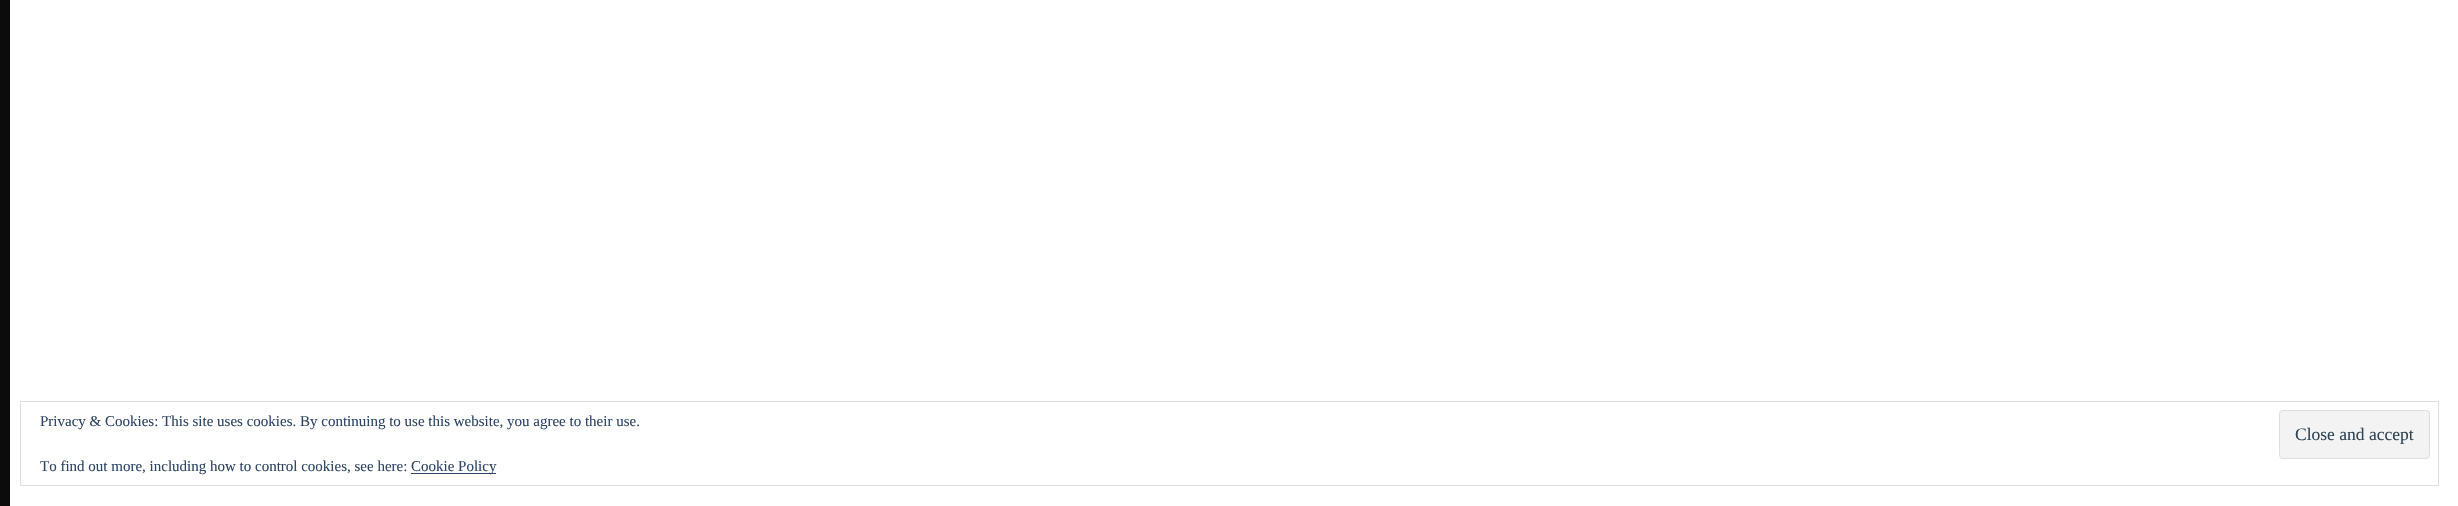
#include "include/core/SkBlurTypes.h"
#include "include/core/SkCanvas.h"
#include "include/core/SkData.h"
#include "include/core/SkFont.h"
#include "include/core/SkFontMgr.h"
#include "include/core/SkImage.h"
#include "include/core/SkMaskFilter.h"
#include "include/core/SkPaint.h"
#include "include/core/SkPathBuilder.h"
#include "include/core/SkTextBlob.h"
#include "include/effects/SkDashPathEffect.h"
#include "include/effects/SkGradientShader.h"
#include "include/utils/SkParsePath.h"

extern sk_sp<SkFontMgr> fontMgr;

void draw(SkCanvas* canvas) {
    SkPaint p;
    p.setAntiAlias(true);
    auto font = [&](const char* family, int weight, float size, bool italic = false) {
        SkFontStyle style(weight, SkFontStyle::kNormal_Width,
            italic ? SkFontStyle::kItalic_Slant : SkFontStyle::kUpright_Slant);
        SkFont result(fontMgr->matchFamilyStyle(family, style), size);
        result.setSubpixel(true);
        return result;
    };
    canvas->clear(0xFF0C0C0C);
    p.setColor(0xFFFFFFFF);
    canvas->drawRect(SkRect::MakeLTRB(10, 0, 2458, 506), p);
    p.setStyle(SkPaint::kStroke_Style);
    p.setStrokeWidth(1);
    p.setColor(0xFFDEDEDE);
    canvas->drawRect(SkRect::MakeLTRB(20.5f, 401.5f, 2438.5f, 485.5f), p);
    auto font1 = font("Liberation Serif", 400, 15);
    p.setStyle(SkPaint::kFill_Style);
    p.setColor(0xFF2E4467);
    canvas->drawString("Privacy & Cookies: This site uses cookies. By continuing to use this website, you agree to their use.", 40, 426, font1, p);
    p.setColor(0xFFF3F3F3);
    canvas->drawRoundRect(SkRect::MakeLTRB(2279.5f, 410.5f, 2429.5f, 458.5f), 3.5f, 3.5f, p);
    p.setStyle(SkPaint::kStroke_Style);
    p.setColor(0xFFDEDEDE);
    canvas->drawRoundRect(SkRect::MakeLTRB(2279.5f, 410.5f, 2429.5f, 458.5f), 3.5f, 3.5f, p);
    auto font2 = font("Liberation Serif", 400, 17.5f);
    p.setStyle(SkPaint::kFill_Style);
    p.setColor(0xFF2E4453);
    canvas->drawString("Close and accept", 2295, 440, font2, p);
    p.setColor(0xFF2E4467);
    canvas->drawString("To find out more, including how to control cookies, see here:", 40, 471, font1, p);
    canvas->drawRect(SkRect::MakeLTRB(411, 473, 496, 474), p);
    canvas->drawString("Cookie Policy", 411, 471, font1, p);
}
